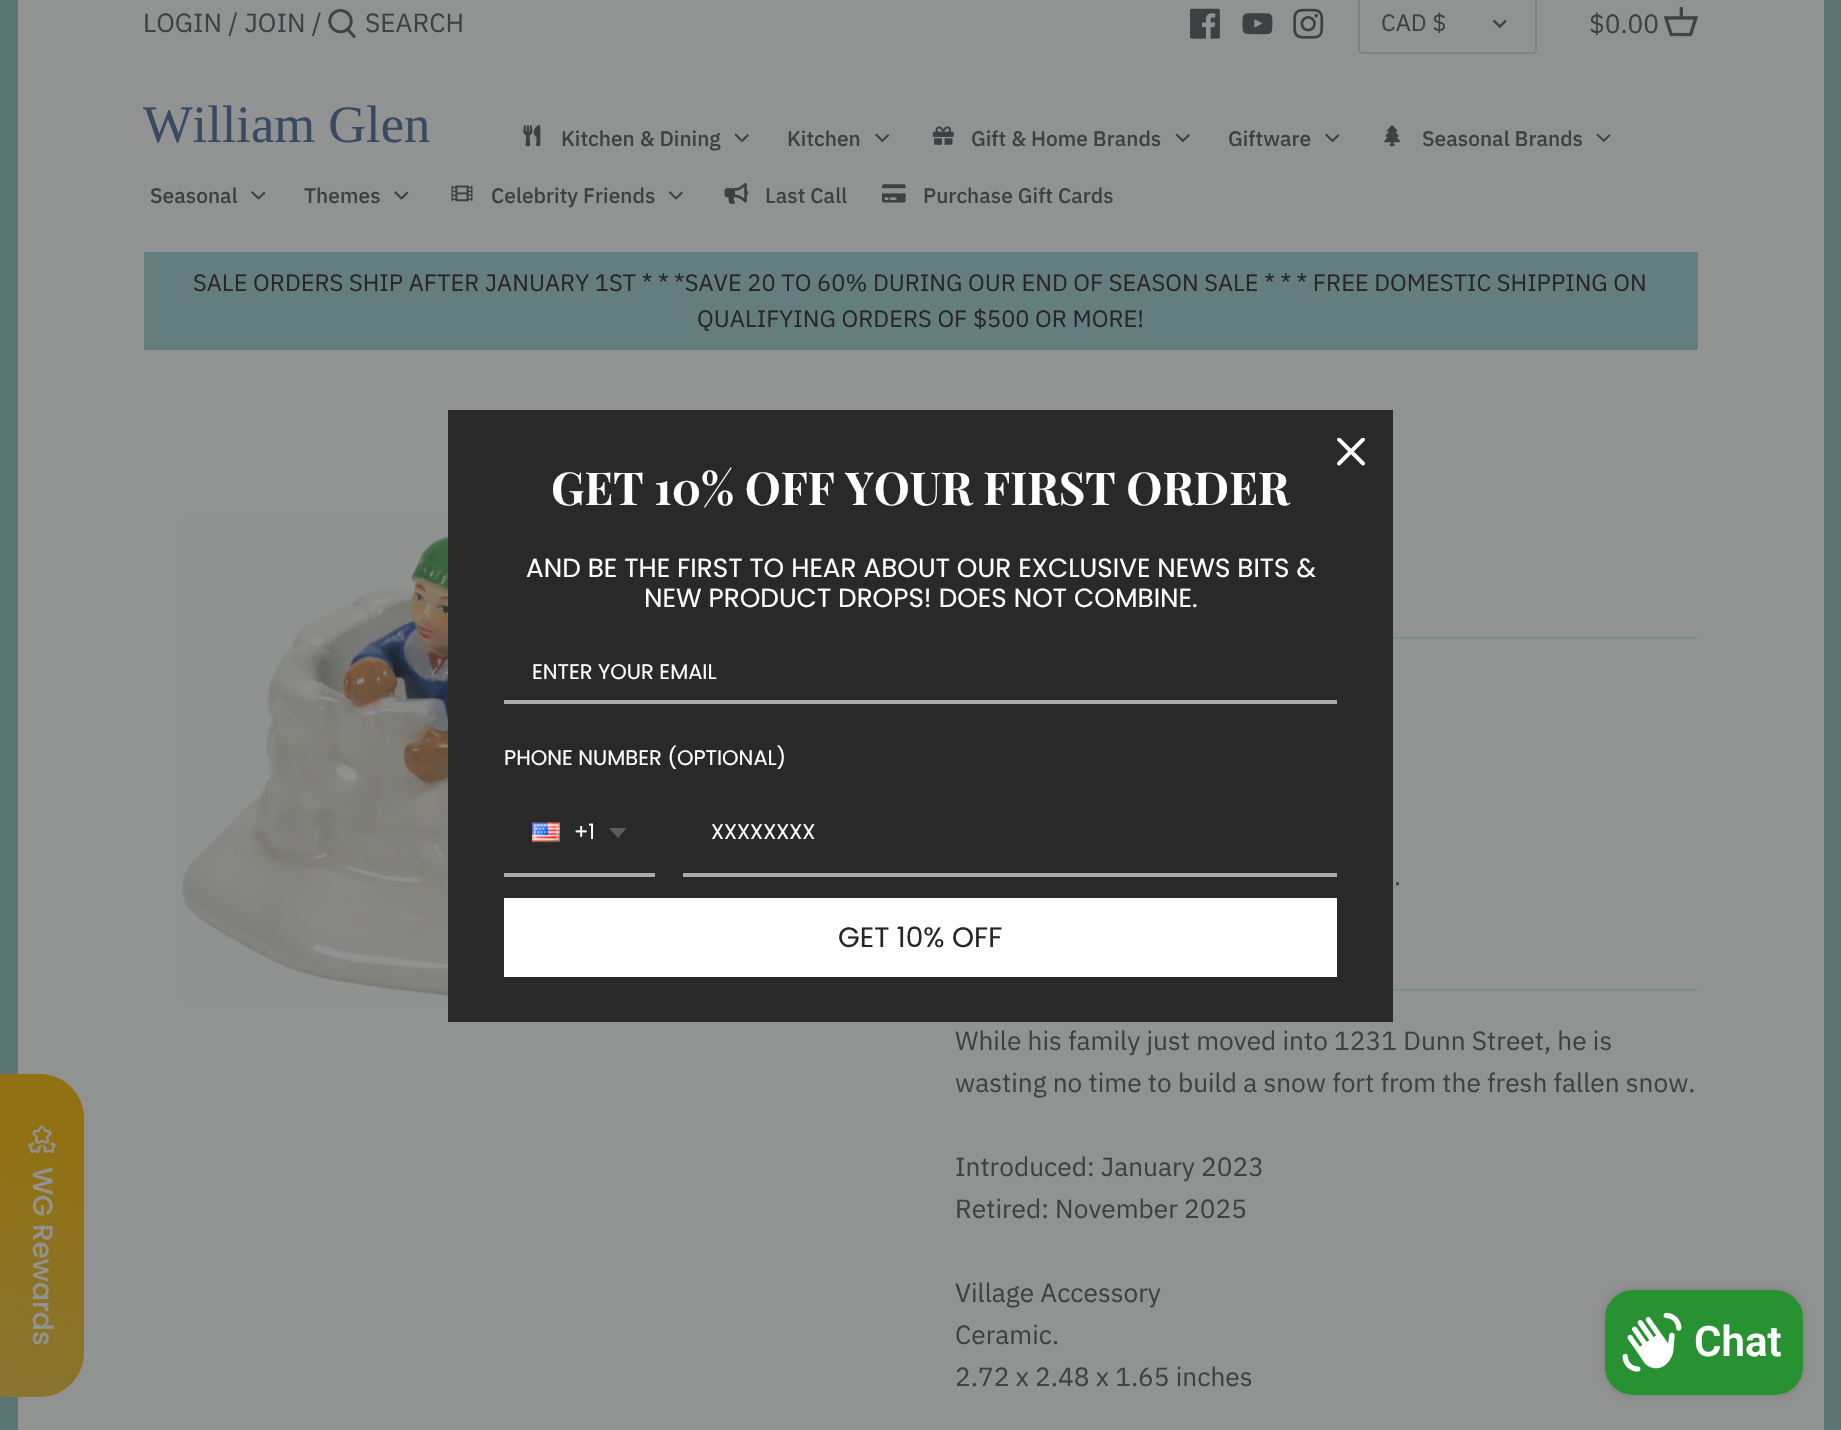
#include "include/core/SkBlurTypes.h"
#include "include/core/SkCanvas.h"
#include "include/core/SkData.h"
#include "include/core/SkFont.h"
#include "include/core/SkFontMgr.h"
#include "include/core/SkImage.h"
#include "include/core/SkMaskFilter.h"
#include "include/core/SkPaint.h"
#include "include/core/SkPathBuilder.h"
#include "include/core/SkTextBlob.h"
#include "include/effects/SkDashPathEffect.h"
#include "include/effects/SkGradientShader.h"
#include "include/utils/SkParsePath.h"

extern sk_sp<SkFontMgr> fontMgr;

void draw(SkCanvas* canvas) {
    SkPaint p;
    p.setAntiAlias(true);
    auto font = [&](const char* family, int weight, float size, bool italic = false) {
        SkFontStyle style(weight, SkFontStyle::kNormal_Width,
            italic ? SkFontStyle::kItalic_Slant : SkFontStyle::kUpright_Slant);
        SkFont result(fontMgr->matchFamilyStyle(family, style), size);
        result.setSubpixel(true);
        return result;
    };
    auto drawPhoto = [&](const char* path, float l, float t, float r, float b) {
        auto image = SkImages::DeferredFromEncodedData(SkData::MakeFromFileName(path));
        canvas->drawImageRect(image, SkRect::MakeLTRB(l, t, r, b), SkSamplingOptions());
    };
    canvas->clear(0xFFFFFFFF);
    p.setStyle(SkPaint::kStroke_Style);
    p.setStrokeWidth(18);
    p.setColor(0xFF5B7474);
    canvas->drawRect(SkRect::MakeLTRB(9, -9, 1832, 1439), p);
    p.setStyle(SkPaint::kFill_Style);
    p.setColor(0xFF919292);
    canvas->drawRect(SkRect::MakeLTRB(18, 0, 1824, 1430), p);
    auto font1 = font("IBM Plex Sans", 400, 26.25f);
    p.setColor(0xFF3F4042);
    canvas->drawString("LOGIN / JOIN /", 143, 32, font1, p);
    drawPhoto("media/1.png", 328, 9, 356, 39);
    canvas->drawString("SEARCH", 365, 32, font1, p);
    drawPhoto("media/2.png", 1190, 8, 1220, 39);
    drawPhoto("media/3.png", 1242, 13, 1273, 35);
    drawPhoto("media/4.png", 1293, 8, 1324, 39);
    p.setStyle(SkPaint::kStroke_Style);
    p.setStrokeWidth(2);
    p.setColor(0xFF808181);
    canvas->drawRoundRect(SkRect::MakeLTRB(1359, -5, 1536, 53), 3, 3, p);
    auto font2 = font("IBM Plex Sans", 400, 23.62f);
    p.setStyle(SkPaint::kFill_Style);
    p.setColor(0xFF3F4042);
    canvas->drawString("CAD $", 1381, 31, font2, p);
    drawPhoto("media/5.png", 1492, 19, 1507, 29);
    canvas->drawString("$0.00", 1589, 33, font1, p);
    drawPhoto("media/6.png", 1664, 7, 1698, 37);
    auto font3 = font("Liberation Serif", 400, 52.5f);
    p.setColor(0xFF384A5F);
    canvas->drawString("William Glen", 143, 142, font3, p);
    drawPhoto("media/7.png", 523, 125, 541, 147);
    auto font4 = font("IBM Plex Sans", 500, 21);
    p.setColor(0xFF3F4042);
    canvas->drawString("Kitchen & Dining", 561, 146, font4, p);
    canvas->drawPath(SkPathBuilder().moveTo(747.5f, 134).lineTo(749, 135.5f).lineTo(742.5f, 142).lineTo(741, 140.5f).close().detach(), p);
    canvas->drawPath(SkPathBuilder().moveTo(736, 133.5f).lineTo(743, 140.5f).lineTo(741.5f, 142).lineTo(734.5f, 135).close().detach(), p);
    canvas->drawString("Kitchen", 787, 146, font4, p);
    canvas->drawPath(SkPathBuilder().moveTo(888, 134).lineTo(889.5f, 135.5f).lineTo(882.5f, 142).lineTo(881, 140.5f).close().detach(), p);
    canvas->drawPath(SkPathBuilder().moveTo(876.5f, 133.5f).lineTo(883.5f, 140.5f).lineTo(882, 142).lineTo(875, 135).close().detach(), p);
    drawPhoto("media/8.png", 932, 126, 954, 145);
    canvas->drawString("Gift & Home Brands", 971, 146, font4, p);
    canvas->drawPath(SkPathBuilder().moveTo(1188.5f, 134).lineTo(1190, 135.5f).lineTo(1183, 142).lineTo(1181.5f, 140.5f).close().detach(), p);
    canvas->drawPath(SkPathBuilder().moveTo(1177, 133.5f).lineTo(1184, 140.5f).lineTo(1182.5f, 142).lineTo(1175.5f, 135).close().detach(), p);
    canvas->drawString("Giftware", 1228, 146, font4, p);
    canvas->drawPath(SkPathBuilder().moveTo(1338, 134).lineTo(1339.5f, 135.5f).lineTo(1333, 142).lineTo(1331.5f, 140.5f).close().detach(), p);
    canvas->drawPath(SkPathBuilder().moveTo(1326.5f, 133.5f).lineTo(1333.5f, 140.5f).lineTo(1332, 142).lineTo(1325, 135).close().detach(), p);
    drawPhoto("media/9.png", 1384, 125, 1400, 147);
    canvas->drawString("Seasonal Brands", 1422, 146, font4, p);
    canvas->drawPath(SkPathBuilder().moveTo(1609.5f, 134).lineTo(1610.5f, 135.5f).lineTo(1604, 142).lineTo(1602.5f, 140.5f).close().detach(), p);
    canvas->drawPath(SkPathBuilder().moveTo(1597.5f, 133.5f).lineTo(1605, 140.5f).lineTo(1603.5f, 142).lineTo(1596.5f, 135).close().detach(), p);
    canvas->drawString("Seasonal", 150, 203, font4, p);
    canvas->drawPath(SkPathBuilder().moveTo(264, 191.5f).lineTo(265.5f, 193).lineTo(259, 199.5f).lineTo(257.5f, 198).close().detach(), p);
    canvas->drawPath(SkPathBuilder().moveTo(252.5f, 191).lineTo(259.5f, 198).lineTo(258, 199.5f).lineTo(251, 192.5f).close().detach(), p);
    canvas->drawString("Themes", 304, 203, font4, p);
    canvas->drawPath(SkPathBuilder().moveTo(407, 191.5f).lineTo(408.5f, 193).lineTo(402, 199.5f).lineTo(400.5f, 198).close().detach(), p);
    canvas->drawPath(SkPathBuilder().moveTo(395.5f, 191).lineTo(402.5f, 198).lineTo(401, 199.5f).lineTo(394, 192.5f).close().detach(), p);
    drawPhoto("media/10.png", 451, 185, 473, 202);
    canvas->drawString("Celebrity Friends", 491, 203, font4, p);
    canvas->drawPath(SkPathBuilder().moveTo(681.5f, 191.5f).lineTo(683, 193).lineTo(676.5f, 199.5f).lineTo(675, 198).close().detach(), p);
    canvas->drawPath(SkPathBuilder().moveTo(670, 191).lineTo(677, 198).lineTo(675.5f, 199.5f).lineTo(668.5f, 192.5f).close().detach(), p);
    drawPhoto("media/11.png", 724, 182, 749, 204);
    canvas->drawString("Last Call", 765, 203, font4, p);
    drawPhoto("media/12.png", 882, 184, 906, 203);
    canvas->drawString("Purchase Gift Cards", 923, 203, font4, p);
    p.setColor(0xFF647D7E);
    canvas->drawRect(SkRect::MakeLTRB(144, 252, 1698, 350), p);
    p.setColor(0xFF272526);
    canvas->drawString("SALE ORDERS SHIP AFTER JANUARY 1ST * * *SAVE 20 TO 60% DURING OUR END OF SEASON SALE * * * FREE DOMESTIC SHIPPING ON", 193, 291, font2, p);
    canvas->drawString("QUALIFYING ORDERS OF $500 OR MORE!", 697, 327, font2, p);
    drawPhoto("media/13.png", 181, 518, 448, 1003);
    p.setColor(0xFF7D8C8D);
    canvas->drawRect(SkRect::MakeLTRB(1393, 637, 1698, 639), p);
    canvas->drawRect(SkRect::MakeLTRB(1393, 989, 1698, 991), p);
    p.setColor(0xFF3F4042);
    {
        const struct { const char* s; float x, y; } items[] = {
            {".", 1394, 885},
            {"While his family just moved into 1231 Dunn Street, he is", 955, 1050},
            {"wasting no time to build a snow fort from the fresh fallen snow.", 955, 1092},
            {"Introduced: January 2023", 955, 1176},
            {"Retired: November 2025", 955, 1218},
            {"Village Accessory", 955, 1302},
            {"Ceramic.", 955, 1344},
            {"2.72 x 2.48 x 1.65 inches", 955, 1386},
        };
        for (auto [s, x, y] : items) {
            canvas->drawString(s, x, y, font1, p);
        }
    }
    p.setColor(0xFF292929);
    canvas->drawRect(SkRect::MakeLTRB(448, 410, 1393, 1022), p);
    drawPhoto("media/14.png", 1337, 438, 1365, 466);
    auto font5 = font("Playfair Display", 700, 45.5f);
    p.setColor(0xFFFFFFFF);
    canvas->drawString("GET 10% OFF YOUR FIRST ORDER", 551, 505, font5, p);
    auto font6 = font("Poppins", 400, 26.25f);
    canvas->drawString("AND BE THE FIRST TO HEAR ABOUT OUR EXCLUSIVE NEWS BITS &", 526, 577, font6, p);
    canvas->drawString("NEW PRODUCT DROPS! DOES NOT COMBINE.", 644, 607, font6, p);
    p.setColor(0xFFACACAC);
    canvas->drawRect(SkRect::MakeLTRB(504, 700, 1337, 704), p);
    auto font7 = font("Poppins", 400, 21);
    p.setColor(0xFFFFFFFF);
    canvas->drawString("ENTER YOUR EMAIL", 532, 679, font7, p);
    canvas->drawString("PHONE NUMBER (OPTIONAL)", 504, 765, font7, p);
    p.setColor(0xFFACACAC);
    canvas->drawRect(SkRect::MakeLTRB(504, 873, 655, 877), p);
    drawPhoto("media/15.png", 532, 822, 560, 843);
    p.setColor(0xFFFFFFFF);
    canvas->drawString("+1", 574, 839, font7, p);
    p.setColor(0xFF5C5C5F);
    canvas->drawPath(SkPathBuilder(SkPathFillType::kEvenOdd).moveTo(609, 828).lineTo(626.5f, 828).lineTo(618, 838).close().detach(), p);
    p.setColor(0xFFACACAC);
    canvas->drawRect(SkRect::MakeLTRB(683, 873, 1337, 877), p);
    p.setColor(0xFFFFFFFF);
    canvas->drawString("XXXXXXXX", 711, 839, font7, p);
    canvas->drawRect(SkRect::MakeLTRB(504, 898, 1337, 977), p);
    auto font8 = font("Poppins", 400, 28);
    p.setColor(0xFF272526);
    canvas->drawString("GET 10% OFF", 838, 947, font8, p);
    {
        const SkColor colors[] = {0xFF917114, 0xFF84753F};
        const float stops[] = {0.17f, 1};
        const SkPoint ends[] = {{97, 1079}, {-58, 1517}};
        p.setShader(SkGradientShader::MakeLinear(ends, colors, stops, 2, SkTileMode::kClamp));
        p.setAlpha(255);
    }
    canvas->drawPath(SkPathBuilder().moveTo(84, 1118).lineTo(84, 1353).cubicTo(84, 1377, 64, 1397, 40, 1397).lineTo(0, 1397).lineTo(0, 1074).lineTo(40, 1074).cubicTo(64, 1074, 84, 1094, 84, 1118).close().detach(), p);
    drawPhoto("media/16.png", 28, 1125, 56, 1153);
    auto font9 = font("Poppins", 500, 28);
    p.setShader(nullptr);
    p.setColor(0xFF919292);
    canvas->save();
    canvas->rotate(90, 33, 1167);
    canvas->drawString("WG Rewards", 33, 1167, font9, p);
    canvas->restore();
    p.setColor(0x26000000);
    p.setMaskFilter(SkMaskFilter::MakeBlur(kNormal_SkBlurStyle, 4.5f));
    canvas->drawRoundRect(SkRect::MakeLTRB(1605, 1290, 1803, 1395), 28, 28, p);
    p.setMaskFilter(nullptr);
    p.setColor(0xFF289232);
    canvas->drawRoundRect(SkRect::MakeLTRB(1605, 1290, 1803, 1395), 28, 28, p);
    drawPhoto("media/17.png", 1622, 1312, 1682, 1372);
    auto font10 = font("Roboto", 600, 42);
    p.setColor(0xFFFFFFFF);
    canvas->drawString("Chat", 1694, 1356, font10, p);
}
